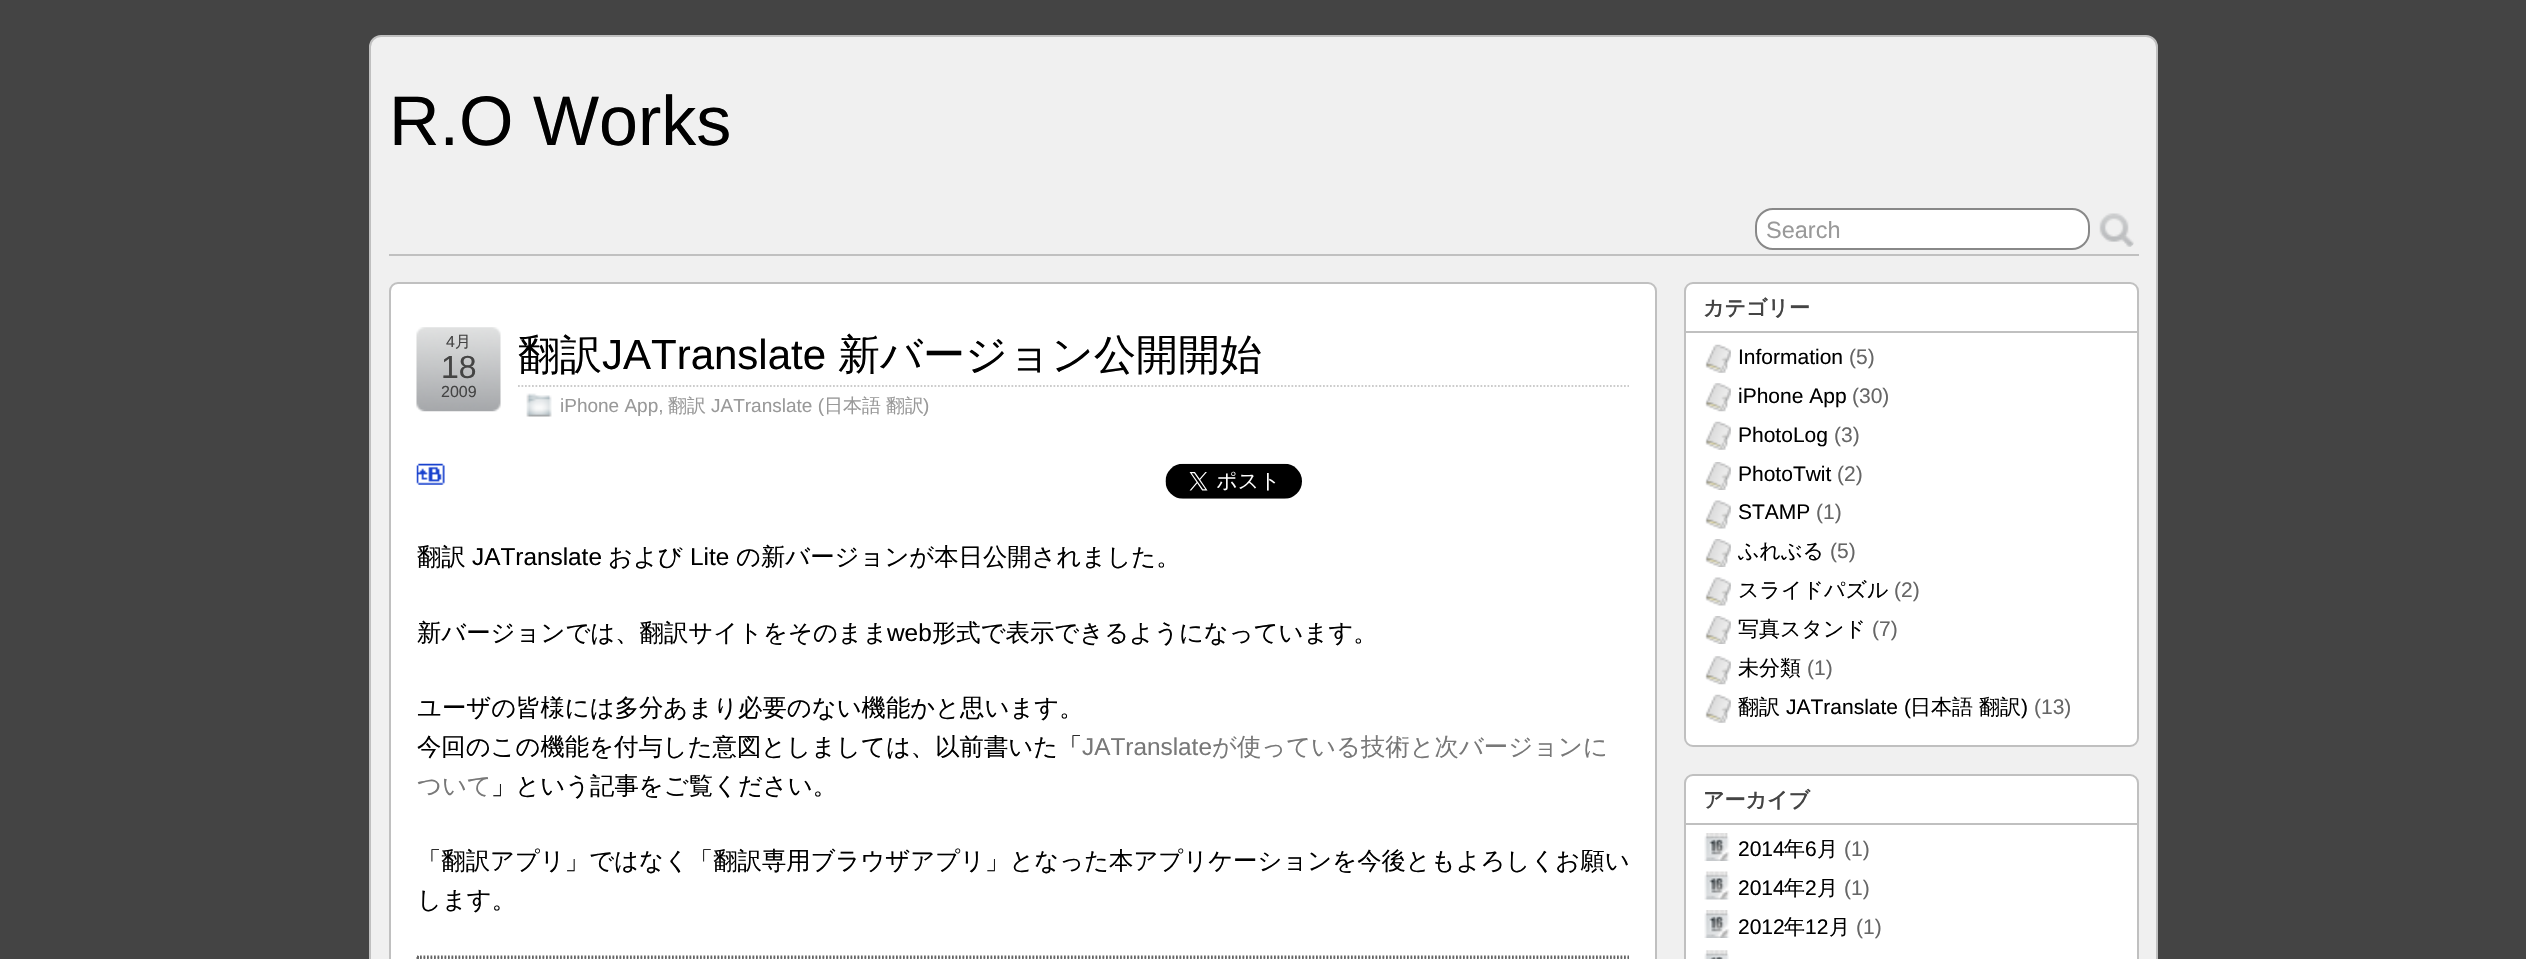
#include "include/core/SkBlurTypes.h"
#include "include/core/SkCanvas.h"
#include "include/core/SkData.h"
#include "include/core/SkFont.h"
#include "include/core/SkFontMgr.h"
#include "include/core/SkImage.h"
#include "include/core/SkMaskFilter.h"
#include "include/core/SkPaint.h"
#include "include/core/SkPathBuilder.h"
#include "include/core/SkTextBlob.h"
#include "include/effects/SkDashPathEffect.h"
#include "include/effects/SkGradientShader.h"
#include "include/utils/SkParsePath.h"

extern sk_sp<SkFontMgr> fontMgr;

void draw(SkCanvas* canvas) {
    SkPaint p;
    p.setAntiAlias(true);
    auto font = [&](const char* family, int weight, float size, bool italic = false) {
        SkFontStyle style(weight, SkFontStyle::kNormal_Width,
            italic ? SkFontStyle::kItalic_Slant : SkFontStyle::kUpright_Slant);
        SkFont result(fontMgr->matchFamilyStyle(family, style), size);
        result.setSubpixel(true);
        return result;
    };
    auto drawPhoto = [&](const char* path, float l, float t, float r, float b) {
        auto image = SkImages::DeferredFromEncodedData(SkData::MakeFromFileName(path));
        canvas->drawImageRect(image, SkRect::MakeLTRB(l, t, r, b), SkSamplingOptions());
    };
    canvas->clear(0xFF444444);
    p.setColor(0xFFF0F0F0);
    canvas->drawRoundRect(SkRect::MakeLTRB(370, 36, 2157, 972), 11, 11, p);
    p.setStyle(SkPaint::kStroke_Style);
    p.setStrokeWidth(2);
    p.setColor(0xFFC0C0C0);
    canvas->drawRoundRect(SkRect::MakeLTRB(370, 36, 2157, 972), 11, 11, p);
    auto font1 = font("Liberation Sans", 400, 70);
    p.setStyle(SkPaint::kFill_Style);
    p.setColor(0xFF000000);
    canvas->drawString("R.O Works", 389, 145, font1, p);
    p.setColor(0xFFC0C0C0);
    canvas->drawRect(SkRect::MakeLTRB(389, 254, 2139, 256), p);
    p.setColor(0xFFFFFFFF);
    canvas->drawRoundRect(SkRect::MakeLTRB(1756, 209, 2089, 249), 17, 17, p);
    p.setStyle(SkPaint::kStroke_Style);
    p.setColor(0xFF888888);
    canvas->drawRoundRect(SkRect::MakeLTRB(1756, 209, 2089, 249), 17, 17, p);
    auto font2 = font("Liberation Sans", 400, 23.5f);
    p.setStyle(SkPaint::kFill_Style);
    p.setColor(0xFF999999);
    canvas->drawString("Search", 1766, 238, font2, p);
    drawPhoto("media/1.png", 2099, 213, 2134, 247);
    p.setColor(0xFFFFFFFF);
    canvas->drawRoundRect(SkRect::MakeLTRB(390, 283, 1656, 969), 8, 8, p);
    p.setStyle(SkPaint::kStroke_Style);
    p.setColor(0xFFC0C0C0);
    canvas->drawRoundRect(SkRect::MakeLTRB(390, 283, 1656, 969), 8, 8, p);
    drawPhoto("media/2.png", 416, 327, 501, 412);
    auto font3 = font("Liberation Sans", 400, 16);
    p.setStyle(SkPaint::kFill_Style);
    p.setColor(0xFF444444);
    canvas->drawString("4", 446, 347, font3, p);
    auto font4 = font("WenQuanYi Zen Hei", 500, 16);
    canvas->drawString("月", 455, 347, font4, p);
    auto font5 = font("Liberation Sans", 400, 32);
    canvas->drawString("18", 441, 378, font5, p);
    canvas->drawString("2009", 441, 397, font3, p);
    p.setStyle(SkPaint::kStroke_Style);
    p.setStrokeWidth(1.8f);
    p.setColor(0xFFCCCCCC);
    p.setPathEffect(SkDashPathEffect::Make({{1.75f, 1.75f}}, 0));
    canvas->drawPath(SkPathBuilder().moveTo(518, 386).lineTo(1629, 386).detach(), p);
    p.setPathEffect(nullptr);
    auto font6 = font("WenQuanYi Zen Hei", 500, 42);
    p.setStyle(SkPaint::kFill_Style);
    p.setColor(0xFF000000);
    canvas->drawString("翻訳", 518, 369, font6, p);
    auto font7 = font("Liberation Sans", 400, 42);
    canvas->drawString("JATranslate", 602, 369, font7, p);
    canvas->drawString("新バージョン公開開始", 838, 369, font6, p);
    drawPhoto("media/3.png", 526, 393, 552, 417);
    auto font8 = font("Liberation Sans", 400, 19);
    p.setColor(0xFF999999);
    canvas->drawString("iPhone App,", 560, 412, font8, p);
    auto font9 = font("WenQuanYi Zen Hei", 500, 19);
    canvas->drawString("翻訳", 668, 412, font9, p);
    canvas->drawString("JATranslate (", 711, 412, font8, p);
    canvas->drawString("日本語", 824, 412, font9, p);
    canvas->drawString("翻訳", 886, 412, font9, p);
    canvas->drawString(")", 923, 412, font8, p);
    drawPhoto("media/4.png", 416, 463, 445, 485);
    drawPhoto("media/5.png", 1165, 463, 1302, 499);
    auto font10 = font("WenQuanYi Zen Hei", 500, 24.35f);
    p.setColor(0xFF000000);
    canvas->drawString("翻訳", 417, 565, font10, p);
    auto font11 = font("Liberation Sans", 400, 24.35f);
    canvas->drawString("JATranslate", 472, 565, font11, p);
    canvas->drawString("および", 608, 565, font10, p);
    canvas->drawString("Lite", 690, 565, font11, p);
    canvas->drawString("の新バージョンが本日公開されました。", 736, 565, font10, p);
    canvas->drawString("新バージョンでは、翻訳サイトをそのまま", 417, 641, font10, p);
    canvas->drawString("web", 887, 641, font11, p);
    {
        const struct { const char* s; float x, y; } items[] = {
            {"形式で表示できるようになっています。", 932, 641},
            {"ユーザの皆様には多分あまり必要のない機能かと思います。", 417, 716},
            {"今回のこの機能を付与した意図としましては、以前書いた「", 417, 755},
        };
        for (auto [s, x, y] : items) {
            canvas->drawString(s, x, y, font10, p);
        }
    }
    p.setColor(0xFF787878);
    canvas->drawString("JATranslate", 1082, 755, font11, p);
    canvas->drawString("が使っている技術と次バージョンに", 1212, 755, font10, p);
    canvas->drawString("ついて", 417, 794, font10, p);
    p.setColor(0xFF000000);
    {
        const struct { const char* s; float x, y; } items[] = {
            {"」という記事をご覧ください。", 491, 794},
            {"「翻訳アプリ」ではなく「翻訳専用ブラウザアプリ」となった本アプリケーションを今後ともよろしくお願い", 417, 869},
            {"します。", 417, 908},
        };
        for (auto [s, x, y] : items) {
            canvas->drawString(s, x, y, font10, p);
        }
    }
    canvas->save();
    canvas->clipRect(SkRect::MakeLTRB(417, 420, 1629, 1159));
    p.setStyle(SkPaint::kStroke_Style);
    p.setColor(0xFF666666);
    p.setPathEffect(SkDashPathEffect::Make({{1.75f, 1.75f}}, 0));
    canvas->drawPath(SkPathBuilder().moveTo(416.5f, 956.5f).lineTo(1629, 956.5f).detach(), p);
    p.setPathEffect(nullptr);
    canvas->restore();
    p.setStyle(SkPaint::kFill_Style);
    canvas->drawRect(SkRect::MakeLTRB(1628, 956, 1629, 959), p);
    p.setStyle(SkPaint::kStroke_Style);
    p.setPathEffect(SkDashPathEffect::Make({{1.75f, 1.75f}}, 0));
    canvas->drawPath(SkPathBuilder().moveTo(416.5f, 958).lineTo(1629, 958).detach(), p);
    p.setPathEffect(nullptr);
    p.setStyle(SkPaint::kFill_Style);
    canvas->drawRect(SkRect::MakeLTRB(417, 956, 419, 959), p);
    p.setColor(0xFFFFFFFF);
    canvas->drawRoundRect(SkRect::MakeLTRB(1685, 283, 2138, 746), 8, 8, p);
    p.setStyle(SkPaint::kStroke_Style);
    p.setStrokeWidth(2);
    p.setColor(0xFFC0C0C0);
    canvas->drawRoundRect(SkRect::MakeLTRB(1685, 283, 2138, 746), 8, 8, p);
    p.setStyle(SkPaint::kFill_Style);
    canvas->drawRect(SkRect::MakeLTRB(1685, 331, 2137, 333), p);
    auto font12 = font("WenQuanYi Zen Hei", 700, 21);
    p.setColor(0xFF444444);
    canvas->drawString("カテゴリー", 1703, 315, font12, p);
    drawPhoto("media/6.png", 1705, 344, 1731, 373);
    auto font13 = font("Liberation Sans", 400, 21);
    p.setColor(0xFF000000);
    canvas->drawString("Information", 1738, 364, font13, p);
    p.setColor(0xFF666666);
    canvas->drawString("(5)", 1849, 364, font13, p);
    drawPhoto("media/7.png", 1705, 383, 1731, 412);
    p.setColor(0xFF000000);
    canvas->drawString("iPhone App", 1738, 403, font13, p);
    p.setColor(0xFF666666);
    canvas->drawString("(30)", 1852, 403, font13, p);
    drawPhoto("media/6.png", 1705, 421, 1731, 450);
    p.setColor(0xFF000000);
    canvas->drawString("PhotoLog", 1738, 442, font13, p);
    p.setColor(0xFF666666);
    canvas->drawString("(3)", 1834, 442, font13, p);
    drawPhoto("media/8.png", 1705, 462, 1731, 490);
    p.setColor(0xFF000000);
    canvas->drawString("PhotoTwit", 1738, 481, font13, p);
    p.setColor(0xFF666666);
    canvas->drawString("(2)", 1837, 481, font13, p);
    drawPhoto("media/9.png", 1705, 500, 1731, 529);
    p.setColor(0xFF000000);
    canvas->drawString("STAMP", 1738, 519, font13, p);
    p.setColor(0xFF666666);
    canvas->drawString("(1)", 1816, 519, font13, p);
    drawPhoto("media/8.png", 1705, 539, 1731, 567);
    auto font14 = font("WenQuanYi Zen Hei", 500, 21);
    p.setColor(0xFF000000);
    canvas->drawString("ふれぶる", 1738, 558, font14, p);
    p.setColor(0xFF666666);
    canvas->drawString("(5)", 1830, 558, font13, p);
    drawPhoto("media/9.png", 1705, 577, 1731, 606);
    p.setColor(0xFF000000);
    canvas->drawString("スライドパズル", 1738, 597, font14, p);
    p.setColor(0xFF666666);
    canvas->drawString("(2)", 1894, 597, font13, p);
    drawPhoto("media/8.png", 1705, 616, 1731, 644);
    p.setColor(0xFF000000);
    canvas->drawString("写真スタンド", 1738, 636, font14, p);
    p.setColor(0xFF666666);
    canvas->drawString("(7)", 1872, 636, font13, p);
    drawPhoto("media/7.png", 1705, 656, 1731, 685);
    p.setColor(0xFF000000);
    canvas->drawString("未分類", 1738, 675, font14, p);
    p.setColor(0xFF666666);
    canvas->drawString("(1)", 1807, 675, font13, p);
    drawPhoto("media/6.png", 1705, 694, 1731, 723);
    p.setColor(0xFF000000);
    canvas->drawString("翻訳", 1738, 714, font14, p);
    canvas->drawString("JATranslate (", 1786, 714, font13, p);
    canvas->drawString("日本語", 1910, 714, font14, p);
    canvas->drawString("翻訳", 1979, 714, font14, p);
    canvas->drawString(")", 2021, 714, font13, p);
    p.setColor(0xFF666666);
    canvas->drawString("(13)", 2034, 714, font13, p);
    p.setColor(0xFFFFFFFF);
    canvas->drawRoundRect(SkRect::MakeLTRB(1685, 775, 2138, 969), 8, 8, p);
    p.setStyle(SkPaint::kStroke_Style);
    p.setColor(0xFFC0C0C0);
    canvas->drawRoundRect(SkRect::MakeLTRB(1685, 775, 2138, 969), 8, 8, p);
    p.setStyle(SkPaint::kFill_Style);
    canvas->drawRect(SkRect::MakeLTRB(1685, 823, 2137, 825), p);
    p.setColor(0xFF444444);
    canvas->drawString("アーカイブ", 1703, 807, font12, p);
    drawPhoto("media/10.png", 1704, 833, 1730, 861);
    p.setColor(0xFF000000);
    canvas->drawString("2014", 1738, 856, font13, p);
    canvas->drawString("年", 1784, 856, font14, p);
    canvas->drawString("6", 1805, 856, font13, p);
    canvas->drawString("月", 1817, 856, font14, p);
    p.setColor(0xFF666666);
    canvas->drawString("(1)", 1844, 856, font13, p);
    drawPhoto("media/11.png", 1704, 871, 1730, 900);
    p.setColor(0xFF000000);
    canvas->drawString("2014", 1738, 895, font13, p);
    canvas->drawString("年", 1784, 895, font14, p);
    canvas->drawString("2", 1805, 895, font13, p);
    canvas->drawString("月", 1817, 895, font14, p);
    p.setColor(0xFF666666);
    canvas->drawString("(1)", 1844, 895, font13, p);
    drawPhoto("media/10.png", 1704, 910, 1730, 938);
    p.setColor(0xFF000000);
    canvas->drawString("2012", 1738, 934, font13, p);
    canvas->drawString("年", 1784, 934, font14, p);
    canvas->drawString("12", 1805, 934, font13, p);
    canvas->drawString("月", 1829, 934, font14, p);
    p.setColor(0xFF666666);
    canvas->drawString("(1)", 1856, 934, font13, p);
    drawPhoto("media/12.png", 1704, 950, 1729, 959);
}
